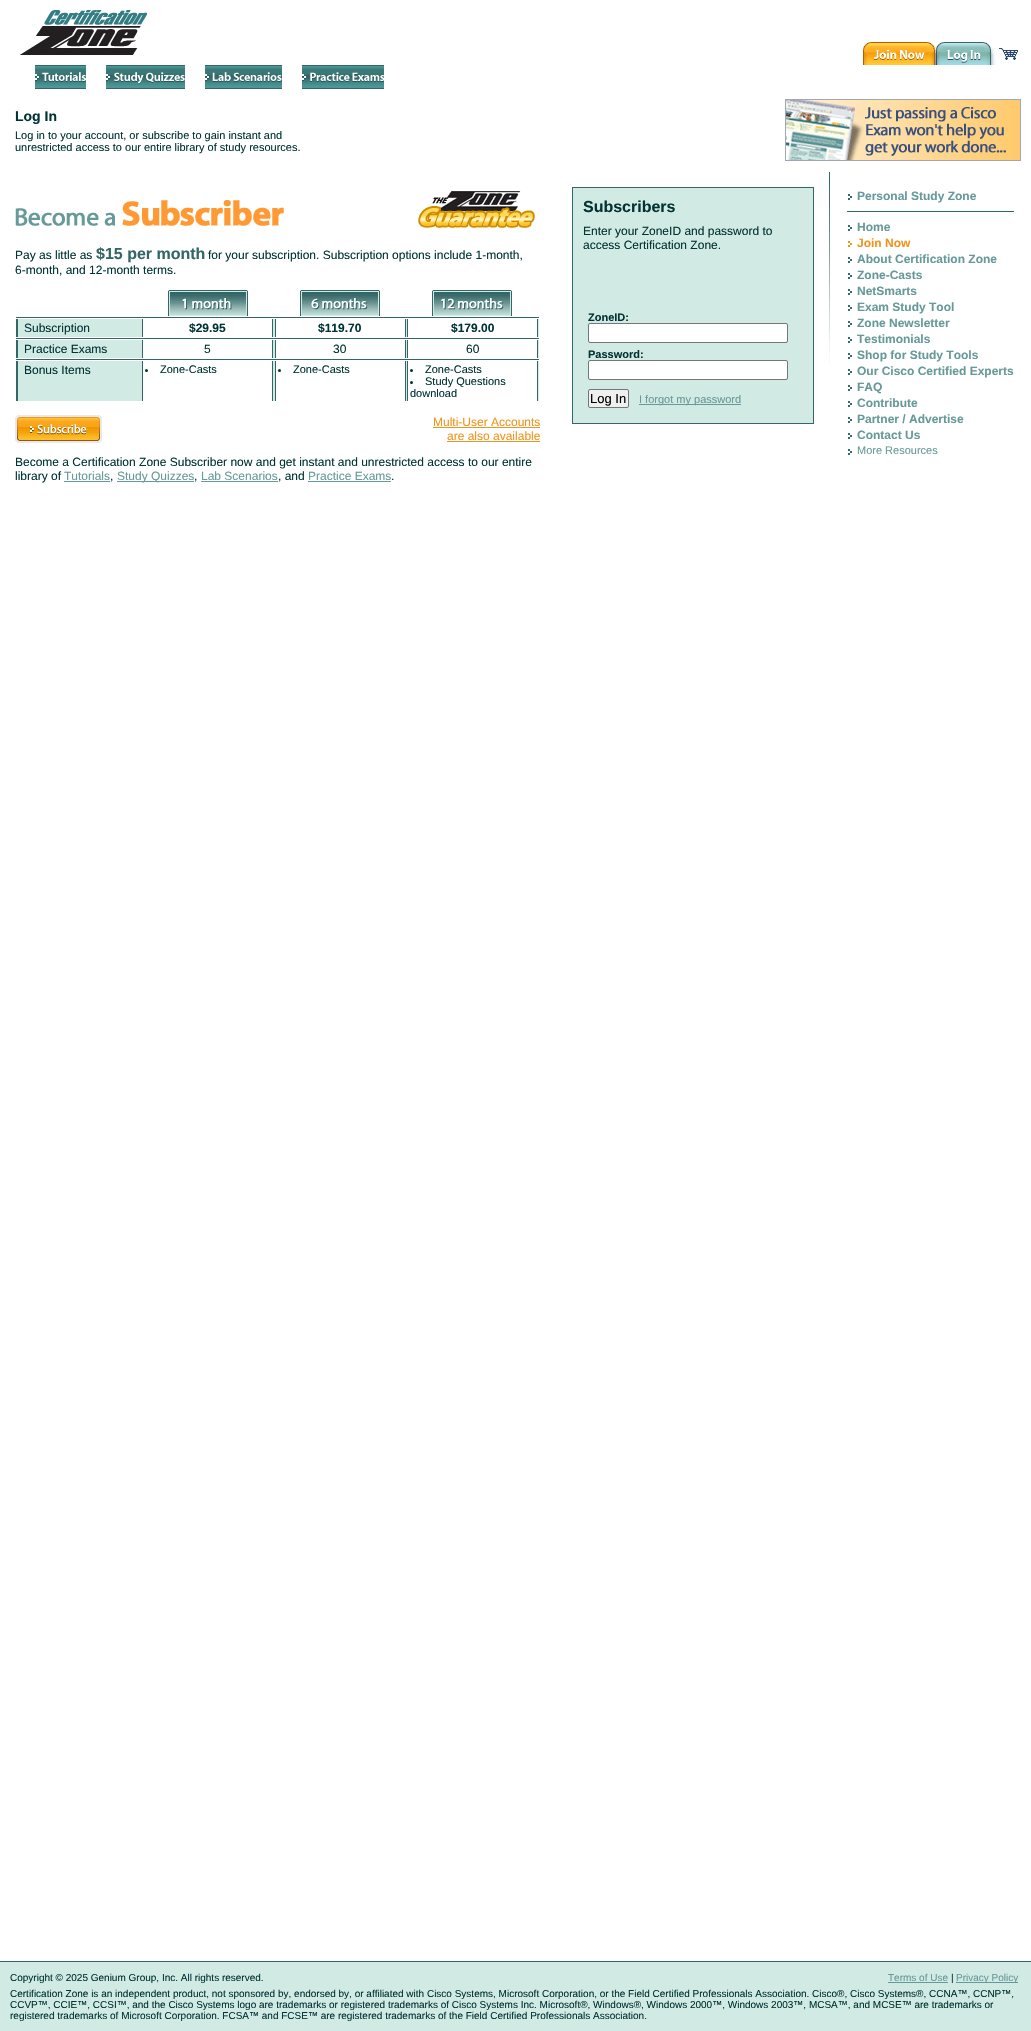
#include "include/core/SkBlurTypes.h"
#include "include/core/SkCanvas.h"
#include "include/core/SkData.h"
#include "include/core/SkFont.h"
#include "include/core/SkFontMgr.h"
#include "include/core/SkImage.h"
#include "include/core/SkMaskFilter.h"
#include "include/core/SkPaint.h"
#include "include/core/SkPathBuilder.h"
#include "include/core/SkTextBlob.h"
#include "include/effects/SkDashPathEffect.h"
#include "include/effects/SkGradientShader.h"
#include "include/utils/SkParsePath.h"

extern sk_sp<SkFontMgr> fontMgr;

void draw(SkCanvas* canvas) {
    SkPaint p;
    p.setAntiAlias(true);
    auto font = [&](const char* family, int weight, float size, bool italic = false) {
        SkFontStyle style(weight, SkFontStyle::kNormal_Width,
            italic ? SkFontStyle::kItalic_Slant : SkFontStyle::kUpright_Slant);
        SkFont result(fontMgr->matchFamilyStyle(family, style), size);
        result.setSubpixel(true);
        return result;
    };
    auto drawPhoto = [&](const char* path, float l, float t, float r, float b) {
        auto image = SkImages::DeferredFromEncodedData(SkData::MakeFromFileName(path));
        canvas->drawImageRect(image, SkRect::MakeLTRB(l, t, r, b), SkSamplingOptions());
    };
    canvas->clear(0xFFFFFFFF);
    drawPhoto("media/1.png", 20, 10, 147, 55);
    drawPhoto("media/2.png", 863, 42, 936, 65);
    drawPhoto("media/3.png", 936, 42, 996, 65);
    drawPhoto("media/4.png", 999, 48, 1018, 60);
    drawPhoto("media/5.png", 35, 65, 86, 89);
    drawPhoto("media/6.png", 106, 65, 185, 89);
    drawPhoto("media/7.png", 205, 65, 282, 89);
    drawPhoto("media/8.png", 302, 65, 384, 89);
    auto font1 = font("Liberation Sans", 700, 14);
    p.setColor(0xFF003333);
    canvas->drawString("Log In", 15, 121, font1, p);
    auto font2 = font("Liberation Sans", 400, 11);
    canvas->drawString("Log in to your account, or subscribe to gain instant and", 15, 139, font2, p);
    canvas->drawString("unrestricted access to our entire library of study resources.", 15, 151, font2, p);
    p.setColor(0xFFA2A7B6);
    canvas->drawRect(SkRect::MakeLTRB(785, 99, 1021, 161), p);
    drawPhoto("media/9.png", 786, 100, 1020, 160);
    drawPhoto("media/10.png", 15, 200, 284, 226);
    drawPhoto("media/11.png", 418, 191, 535, 228);
    auto font3 = font("Liberation Sans", 400, 12);
    p.setColor(0xFF003333);
    canvas->drawString("Pay as little as", 15, 259, font3, p);
    auto font4 = font("Liberation Sans", 700, 16);
    p.setColor(0xFF336666);
    canvas->drawString("$15 per month", 96, 259, font4, p);
    p.setColor(0xFF003333);
    canvas->drawString("for your subscription. Subscription options include 1-month,", 208, 259, font3, p);
    canvas->drawString("6-month, and 12-month terms.", 15, 274, font3, p);
    drawPhoto("media/12.png", 168, 290, 248, 316);
    drawPhoto("media/13.png", 300, 290, 380, 316);
    drawPhoto("media/14.png", 432, 290, 512, 316);
    {
        const struct { float l, t, r, b; SkColor color; } items[] = {
            {16, 317, 539, 318, 0xFF336666},
            {16, 319, 538, 337, 0xFF336666},
            {18, 319, 142, 337, 0xFFD1EAE4},
        };
        for (auto [l, t, r, b, color] : items) {
            p.setColor(color);
            canvas->drawRect(SkRect::MakeLTRB(l, t, r, b), p);
        }
    }
    p.setColor(0xFF003333);
    canvas->drawString("Subscription", 24, 332, font3, p);
    p.setColor(0xFFFFFFFF);
    canvas->drawRect(SkRect::MakeLTRB(143, 319, 272, 337), p);
    auto font5 = font("Liberation Sans", 700, 12);
    p.setColor(0xFF003333);
    canvas->drawString("$29.95", 189, 332, font5, p);
    p.setColor(0xFFD1EAE4);
    canvas->drawRect(SkRect::MakeLTRB(273, 319, 275, 337), p);
    p.setColor(0xFFFFFFFF);
    canvas->drawRect(SkRect::MakeLTRB(276, 319, 405, 337), p);
    p.setColor(0xFF003333);
    canvas->drawString("$119.70", 318, 332, font5, p);
    p.setColor(0xFFD1EAE4);
    canvas->drawRect(SkRect::MakeLTRB(406, 319, 407, 337), p);
    p.setColor(0xFFFFFFFF);
    canvas->drawRect(SkRect::MakeLTRB(408, 319, 537, 337), p);
    p.setColor(0xFF003333);
    canvas->drawString("$179.00", 451, 332, font5, p);
    {
        const struct { float l, t, r, b; SkColor color; } items[] = {
            {538, 319, 539, 337, 0xFFD1EAE4},
            {16, 338, 539, 339, 0xFF336666},
            {16, 340, 538, 358, 0xFF336666},
            {18, 340, 142, 358, 0xFFD1EAE4},
        };
        for (auto [l, t, r, b, color] : items) {
            p.setColor(color);
            canvas->drawRect(SkRect::MakeLTRB(l, t, r, b), p);
        }
    }
    p.setColor(0xFF003333);
    canvas->drawString("Practice Exams", 24, 353, font3, p);
    p.setColor(0xFFFFFFFF);
    canvas->drawRect(SkRect::MakeLTRB(143, 340, 272, 358), p);
    p.setColor(0xFF003333);
    canvas->drawString("5", 204, 353, font3, p);
    p.setColor(0xFFD1EAE4);
    canvas->drawRect(SkRect::MakeLTRB(273, 340, 275, 358), p);
    p.setColor(0xFFFFFFFF);
    canvas->drawRect(SkRect::MakeLTRB(276, 340, 405, 358), p);
    p.setColor(0xFF003333);
    canvas->drawString("30", 333, 353, font3, p);
    p.setColor(0xFFD1EAE4);
    canvas->drawRect(SkRect::MakeLTRB(406, 340, 407, 358), p);
    p.setColor(0xFFFFFFFF);
    canvas->drawRect(SkRect::MakeLTRB(408, 340, 537, 358), p);
    p.setColor(0xFF003333);
    canvas->drawString("60", 466, 353, font3, p);
    {
        const struct { float l, t, r, b; SkColor color; } items[] = {
            {538, 340, 539, 358, 0xFFD1EAE4},
            {16, 359, 539, 360, 0xFF336666},
            {16, 361, 538, 401, 0xFF336666},
            {18, 361, 142, 401, 0xFFD1EAE4},
        };
        for (auto [l, t, r, b, color] : items) {
            p.setColor(color);
            canvas->drawRect(SkRect::MakeLTRB(l, t, r, b), p);
        }
    }
    p.setColor(0xFF003333);
    canvas->drawString("Bonus Items", 24, 374, font3, p);
    p.setColor(0xFFFFFFFF);
    canvas->drawRect(SkRect::MakeLTRB(143, 361, 272, 401), p);
    p.setColor(0xFF003333);
    canvas->drawCircle(146.5f, 370.5f, 1.5f, p);
    canvas->drawString("Zone-Casts", 160, 373, font2, p);
    p.setColor(0xFFD1EAE4);
    canvas->drawRect(SkRect::MakeLTRB(273, 361, 275, 401), p);
    p.setColor(0xFFFFFFFF);
    canvas->drawRect(SkRect::MakeLTRB(276, 361, 405, 401), p);
    p.setColor(0xFF003333);
    canvas->drawCircle(279.5f, 370.5f, 1.5f, p);
    canvas->drawString("Zone-Casts", 293, 373, font2, p);
    p.setColor(0xFFD1EAE4);
    canvas->drawRect(SkRect::MakeLTRB(406, 361, 407, 401), p);
    p.setColor(0xFFFFFFFF);
    canvas->drawRect(SkRect::MakeLTRB(408, 361, 537, 401), p);
    p.setColor(0xFF003333);
    canvas->drawCircle(411.5f, 370.5f, 1.5f, p);
    canvas->drawString("Zone-Casts", 425, 373, font2, p);
    canvas->drawCircle(411.5f, 382.5f, 1.5f, p);
    canvas->drawString("Study Questions", 425, 385, font2, p);
    canvas->drawString("download", 410, 397, font2, p);
    p.setColor(0xFFD1EAE4);
    canvas->drawRect(SkRect::MakeLTRB(538, 361, 539, 401), p);
    drawPhoto("media/15.png", 15, 415, 102, 443);
    p.setColor(0xFFF0941D);
    canvas->drawString("Multi-User Accounts", 433, 426, font3, p);
    canvas->drawRect(SkRect::MakeLTRB(433, 427, 540, 428), p);
    canvas->drawString("are also available", 447, 440, font3, p);
    canvas->drawRect(SkRect::MakeLTRB(447, 441, 540, 442), p);
    p.setColor(0xFF003333);
    canvas->drawString("Become a Certification Zone Subscriber now and get instant and unrestricted access to our entire", 15, 466, font3, p);
    canvas->drawString("library of", 15, 480, font3, p);
    p.setColor(0xFF669999);
    canvas->drawString("Tutorials", 64, 480, font3, p);
    canvas->drawRect(SkRect::MakeLTRB(64, 481, 110, 482), p);
    p.setColor(0xFF003333);
    canvas->drawString(",", 110, 480, font3, p);
    p.setColor(0xFF669999);
    canvas->drawRect(SkRect::MakeLTRB(117, 481, 194, 482), p);
    canvas->drawString("Study Quizzes", 117, 480, font3, p);
    p.setColor(0xFF003333);
    canvas->drawString(",", 194, 480, font3, p);
    p.setColor(0xFF669999);
    canvas->drawString("Lab Scenarios", 201, 480, font3, p);
    canvas->drawRect(SkRect::MakeLTRB(201, 481, 278, 482), p);
    p.setColor(0xFF003333);
    canvas->drawString(", and", 278, 480, font3, p);
    p.setColor(0xFF669999);
    canvas->drawString("Practice Exams", 308, 480, font3, p);
    canvas->drawRect(SkRect::MakeLTRB(308, 481, 391, 482), p);
    p.setColor(0xFF003333);
    canvas->drawString(".", 391, 480, font3, p);
    {
        const struct { float l, t, r, b; SkColor color; } items[] = {
            {572, 187, 814, 188, 0xFF336666},
            {572, 188, 573, 423, 0xFF336666},
            {573, 188, 813, 423, 0xFFD1EAE4},
        };
        for (auto [l, t, r, b, color] : items) {
            p.setColor(color);
            canvas->drawRect(SkRect::MakeLTRB(l, t, r, b), p);
        }
    }
    p.setColor(0xFF003333);
    canvas->drawString("Subscribers", 583, 212, font4, p);
    canvas->drawString("Enter your ZoneID and password to", 583, 235, font3, p);
    canvas->drawString("access Certification Zone.", 583, 249, font3, p);
    auto font6 = font("Liberation Sans", 700, 11);
    canvas->drawString("ZoneID:", 588, 321, font6, p);
    p.setColor(0xFFFFFFFF);
    canvas->drawRoundRect(SkRect::MakeLTRB(588.5f, 323.5f, 787.5f, 342.5f), 1.5f, 1.5f, p);
    p.setStyle(SkPaint::kStroke_Style);
    p.setStrokeWidth(1);
    p.setColor(0xFF767676);
    canvas->drawRoundRect(SkRect::MakeLTRB(588.5f, 323.5f, 787.5f, 342.5f), 1.5f, 1.5f, p);
    p.setStyle(SkPaint::kFill_Style);
    p.setColor(0xFF003333);
    canvas->drawString("Password:", 588, 358, font6, p);
    p.setColor(0xFFFFFFFF);
    canvas->drawRoundRect(SkRect::MakeLTRB(588.5f, 360.5f, 787.5f, 379.5f), 1.5f, 1.5f, p);
    p.setStyle(SkPaint::kStroke_Style);
    p.setColor(0xFF767676);
    canvas->drawRoundRect(SkRect::MakeLTRB(588.5f, 360.5f, 787.5f, 379.5f), 1.5f, 1.5f, p);
    p.setStyle(SkPaint::kFill_Style);
    p.setColor(0xFFEFEFEF);
    canvas->drawRoundRect(SkRect::MakeLTRB(588.5f, 389.5f, 628.5f, 407.5f), 1.5f, 1.5f, p);
    p.setStyle(SkPaint::kStroke_Style);
    p.setColor(0xFF767676);
    canvas->drawRoundRect(SkRect::MakeLTRB(588.5f, 389.5f, 628.5f, 407.5f), 1.5f, 1.5f, p);
    auto font7 = font("Liberation Sans", 400, 13);
    p.setStyle(SkPaint::kFill_Style);
    p.setColor(0xFF000000);
    canvas->drawString("Log In", 590, 403, font7, p);
    p.setColor(0xFF669999);
    canvas->drawRect(SkRect::MakeLTRB(639, 404, 741, 405), p);
    canvas->drawString("I forgot my password", 639, 403, font2, p);
    p.setColor(0xFF336666);
    canvas->drawRect(SkRect::MakeLTRB(813, 188, 814, 423), p);
    canvas->drawRect(SkRect::MakeLTRB(572, 423, 814, 424), p);
    drawPhoto("media/16.png", 829, 172, 830, 364);
    drawPhoto("media/17.png", 848, 194, 852, 200);
    p.setColor(0xFF669999);
    canvas->drawString("Personal Study Zone", 857, 200, font5, p);
    p.setColor(0xFF336666);
    canvas->drawRect(SkRect::MakeLTRB(847, 211, 1014, 212), p);
    drawPhoto("media/17.png", 848, 225, 852, 231);
    p.setColor(0xFF669999);
    canvas->drawString("Home", 857, 231, font5, p);
    drawPhoto("media/18.png", 848, 241, 852, 247);
    p.setColor(0xFFF0941D);
    canvas->drawString("Join Now", 857, 247, font5, p);
    drawPhoto("media/17.png", 848, 257, 852, 263);
    p.setColor(0xFF669999);
    canvas->drawString("About Certification Zone", 857, 263, font5, p);
    drawPhoto("media/17.png", 848, 273, 852, 279);
    canvas->drawString("Zone-Casts", 857, 279, font5, p);
    drawPhoto("media/17.png", 848, 289, 852, 295);
    canvas->drawString("NetSmarts", 857, 295, font5, p);
    drawPhoto("media/17.png", 848, 305, 852, 311);
    canvas->drawString("Exam Study Tool", 857, 311, font5, p);
    drawPhoto("media/17.png", 848, 321, 852, 327);
    canvas->drawString("Zone Newsletter", 857, 327, font5, p);
    drawPhoto("media/17.png", 848, 337, 852, 343);
    canvas->drawString("Testimonials", 857, 343, font5, p);
    drawPhoto("media/17.png", 848, 353, 852, 359);
    canvas->drawString("Shop for Study Tools", 857, 359, font5, p);
    drawPhoto("media/17.png", 848, 369, 852, 375);
    canvas->drawString("Our Cisco Certified Experts", 857, 375, font5, p);
    drawPhoto("media/17.png", 848, 385, 852, 391);
    canvas->drawString("FAQ", 857, 391, font5, p);
    drawPhoto("media/17.png", 848, 401, 852, 407);
    canvas->drawString("Contribute", 857, 407, font5, p);
    drawPhoto("media/17.png", 848, 417, 852, 423);
    canvas->drawString("Partner / Advertise", 857, 423, font5, p);
    drawPhoto("media/17.png", 848, 433, 852, 439);
    canvas->drawString("Contact Us", 857, 439, font5, p);
    drawPhoto("media/17.png", 848, 449, 852, 455);
    canvas->drawString("More Resources", 857, 454, font2, p);
    p.setColor(0xFF336666);
    canvas->drawRect(SkRect::MakeLTRB(0, 1961, 1031, 1962), p);
    p.setColor(0xFFD1EAE4);
    canvas->drawRect(SkRect::MakeLTRB(0, 1962, 1031, 2031), p);
    auto font8 = font("Liberation Sans", 400, 10);
    p.setColor(0xFF003333);
    canvas->drawString("Copyright © 2025 Genium Group, Inc. All rights reserved.", 10, 1981, font8, p);
    p.setColor(0xFF669999);
    canvas->drawString("Terms of Use", 888, 1981, font8, p);
    canvas->drawRect(SkRect::MakeLTRB(888, 1982, 948, 1983), p);
    p.setColor(0xFF003333);
    canvas->drawString("|", 951, 1981, font8, p);
    p.setColor(0xFF669999);
    canvas->drawRect(SkRect::MakeLTRB(956, 1982, 1018, 1983), p);
    canvas->drawString("Privacy Policy", 956, 1981, font8, p);
    p.setColor(0xFF003333);
    {
        const struct { const char* s; float x, y; } items[] = {
            {"Certification Zone is an independent product, not sponsored by, endorsed by, or affiliated with Cisco Systems, Microsoft Corporation, or the Field Certified Professionals Association. Cisco®, Cisco Systems®, CCNA™, CCNP™,", 10, 1997},
            {"CCVP™, CCIE™, CCSI™, and the Cisco Systems logo are trademarks or registered trademarks of Cisco Systems Inc. Microsoft®, Windows®, Windows 2000™, Windows 2003™, MCSA™, and MCSE™ are trademarks or", 10, 2008},
            {"registered trademarks of Microsoft Corporation. FCSA™ and FCSE™ are registered trademarks of the Field Certified Professionals Association.", 10, 2019},
        };
        for (auto [s, x, y] : items) {
            canvas->drawString(s, x, y, font8, p);
        }
    }
}
